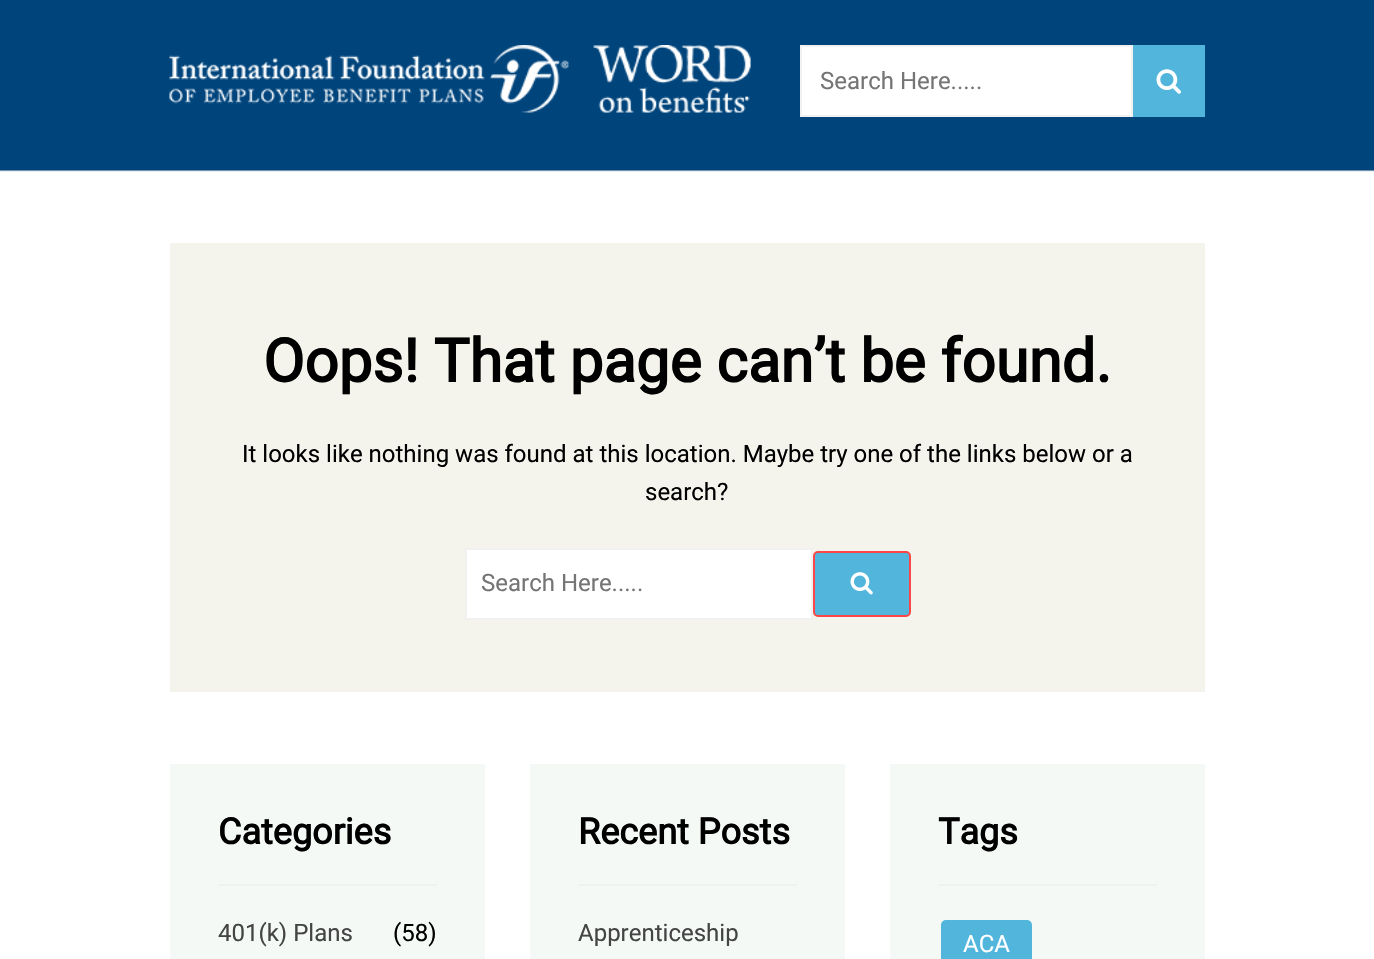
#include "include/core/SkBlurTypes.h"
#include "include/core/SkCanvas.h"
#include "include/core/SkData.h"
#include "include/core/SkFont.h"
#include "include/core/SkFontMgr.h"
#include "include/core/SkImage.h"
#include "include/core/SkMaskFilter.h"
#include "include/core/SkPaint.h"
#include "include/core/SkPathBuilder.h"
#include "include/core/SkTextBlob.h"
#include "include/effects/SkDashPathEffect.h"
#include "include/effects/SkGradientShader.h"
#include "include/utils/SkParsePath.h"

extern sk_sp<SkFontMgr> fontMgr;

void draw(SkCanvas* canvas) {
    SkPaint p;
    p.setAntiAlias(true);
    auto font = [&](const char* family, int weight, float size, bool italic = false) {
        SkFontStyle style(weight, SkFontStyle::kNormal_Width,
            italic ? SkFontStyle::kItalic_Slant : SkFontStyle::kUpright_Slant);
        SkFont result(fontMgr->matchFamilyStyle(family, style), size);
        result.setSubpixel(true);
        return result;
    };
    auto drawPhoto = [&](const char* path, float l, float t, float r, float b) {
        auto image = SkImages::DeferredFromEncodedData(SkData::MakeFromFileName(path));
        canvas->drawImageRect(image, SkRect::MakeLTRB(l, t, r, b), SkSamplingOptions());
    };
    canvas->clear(0xFFFFFFFF);
    {
        const struct { float l, t, r, b; SkColor color; } items[] = {
            {0, 171, 1374, 172, 0xFFEEEEEE},
            {0, 0, 1374, 170, 0xFF00447C},
            {0, 170, 1374, 171, 0xFF6F91AD},
        };
        for (auto [l, t, r, b, color] : items) {
            p.setColor(color);
            canvas->drawRect(SkRect::MakeLTRB(l, t, r, b), p);
        }
    }
    drawPhoto("media/1.png", 169, 45, 751, 113);
    p.setColor(0xFFFFFFFF);
    canvas->drawRect(SkRect::MakeLTRB(801, 46, 1132, 116), p);
    p.setStyle(SkPaint::kStroke_Style);
    p.setStrokeWidth(2);
    p.setColor(0xFFF1F1F1);
    canvas->drawRect(SkRect::MakeLTRB(801, 46, 1132, 116), p);
    auto font1 = font("Roboto", 400, 24);
    p.setStyle(SkPaint::kFill_Style);
    p.setColor(0xFF757575);
    canvas->drawString("Search Here.....", 820, 89, font1, p);
    p.setColor(0xFF52B6DC);
    canvas->drawRect(SkRect::MakeLTRB(1133, 45, 1205, 117), p);
    drawPhoto("media/2.png", 1156, 69, 1181, 94);
    p.setColor(0xFFF4F4EC);
    canvas->drawRect(SkRect::MakeLTRB(170, 243, 1205, 692), p);
    auto font2 = font("Roboto", 700, 60);
    p.setColor(0xFF000000);
    canvas->drawString("Oops! That page can’t be found.", 263, 382, font2, p);
    canvas->drawString("It looks like nothing was found at this location. Maybe try one of the links below or a", 242, 462, font1, p);
    canvas->drawString("search?", 645, 500, font1, p);
    p.setColor(0xFFFFFFFF);
    canvas->drawRect(SkRect::MakeLTRB(466, 549, 812, 619), p);
    p.setStyle(SkPaint::kStroke_Style);
    p.setColor(0xFFF1F1F1);
    canvas->drawRect(SkRect::MakeLTRB(466, 549, 812, 619), p);
    p.setStyle(SkPaint::kFill_Style);
    p.setColor(0xFF757575);
    canvas->drawString("Search Here.....", 481, 591, font1, p);
    p.setColor(0xFF52B6DC);
    canvas->drawRoundRect(SkRect::MakeLTRB(814, 552, 910, 616), 4, 4, p);
    p.setStyle(SkPaint::kStroke_Style);
    p.setColor(0xFFFB4747);
    canvas->drawRoundRect(SkRect::MakeLTRB(814, 552, 910, 616), 4, 4, p);
    drawPhoto("media/3.png", 850, 572, 873, 595);
    p.setStyle(SkPaint::kFill_Style);
    p.setColor(0xFFF4F9F6);
    canvas->drawRect(SkRect::MakeLTRB(170, 764, 485, 959), p);
    p.setColor(0xFFF1F1F1);
    canvas->drawRect(SkRect::MakeLTRB(218, 884, 437, 886), p);
    auto font3 = font("Roboto", 700, 36);
    p.setColor(0xFF000000);
    canvas->drawString("Categories", 218, 844, font3, p);
    p.setColor(0xFF444444);
    canvas->drawString("401(k) Plans", 218, 941, font1, p);
    p.setColor(0xFF000000);
    canvas->drawString("(58)", 393, 941, font1, p);
    p.setColor(0xFFF4F9F6);
    canvas->drawRect(SkRect::MakeLTRB(530, 764, 845, 959), p);
    p.setColor(0xFFF1F1F1);
    canvas->drawRect(SkRect::MakeLTRB(578, 884, 797, 886), p);
    p.setColor(0xFF000000);
    canvas->drawString("Recent Posts", 578, 844, font3, p);
    p.setColor(0xFF444444);
    canvas->drawString("Apprenticeship", 578, 941, font1, p);
    p.setColor(0xFFF4F9F6);
    canvas->drawRect(SkRect::MakeLTRB(890, 764, 1205, 959), p);
    p.setColor(0xFFF1F1F1);
    canvas->drawRect(SkRect::MakeLTRB(938, 884, 1157, 886), p);
    p.setColor(0xFF000000);
    canvas->drawString("Tags", 938, 844, font3, p);
    p.setColor(0xFF52B6DC);
    canvas->drawRoundRect(SkRect::MakeLTRB(941, 920, 1032, 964), 5, 5, p);
    p.setColor(0xFFFFFFFF);
    canvas->drawString("ACA", 963, 952, font1, p);
}
